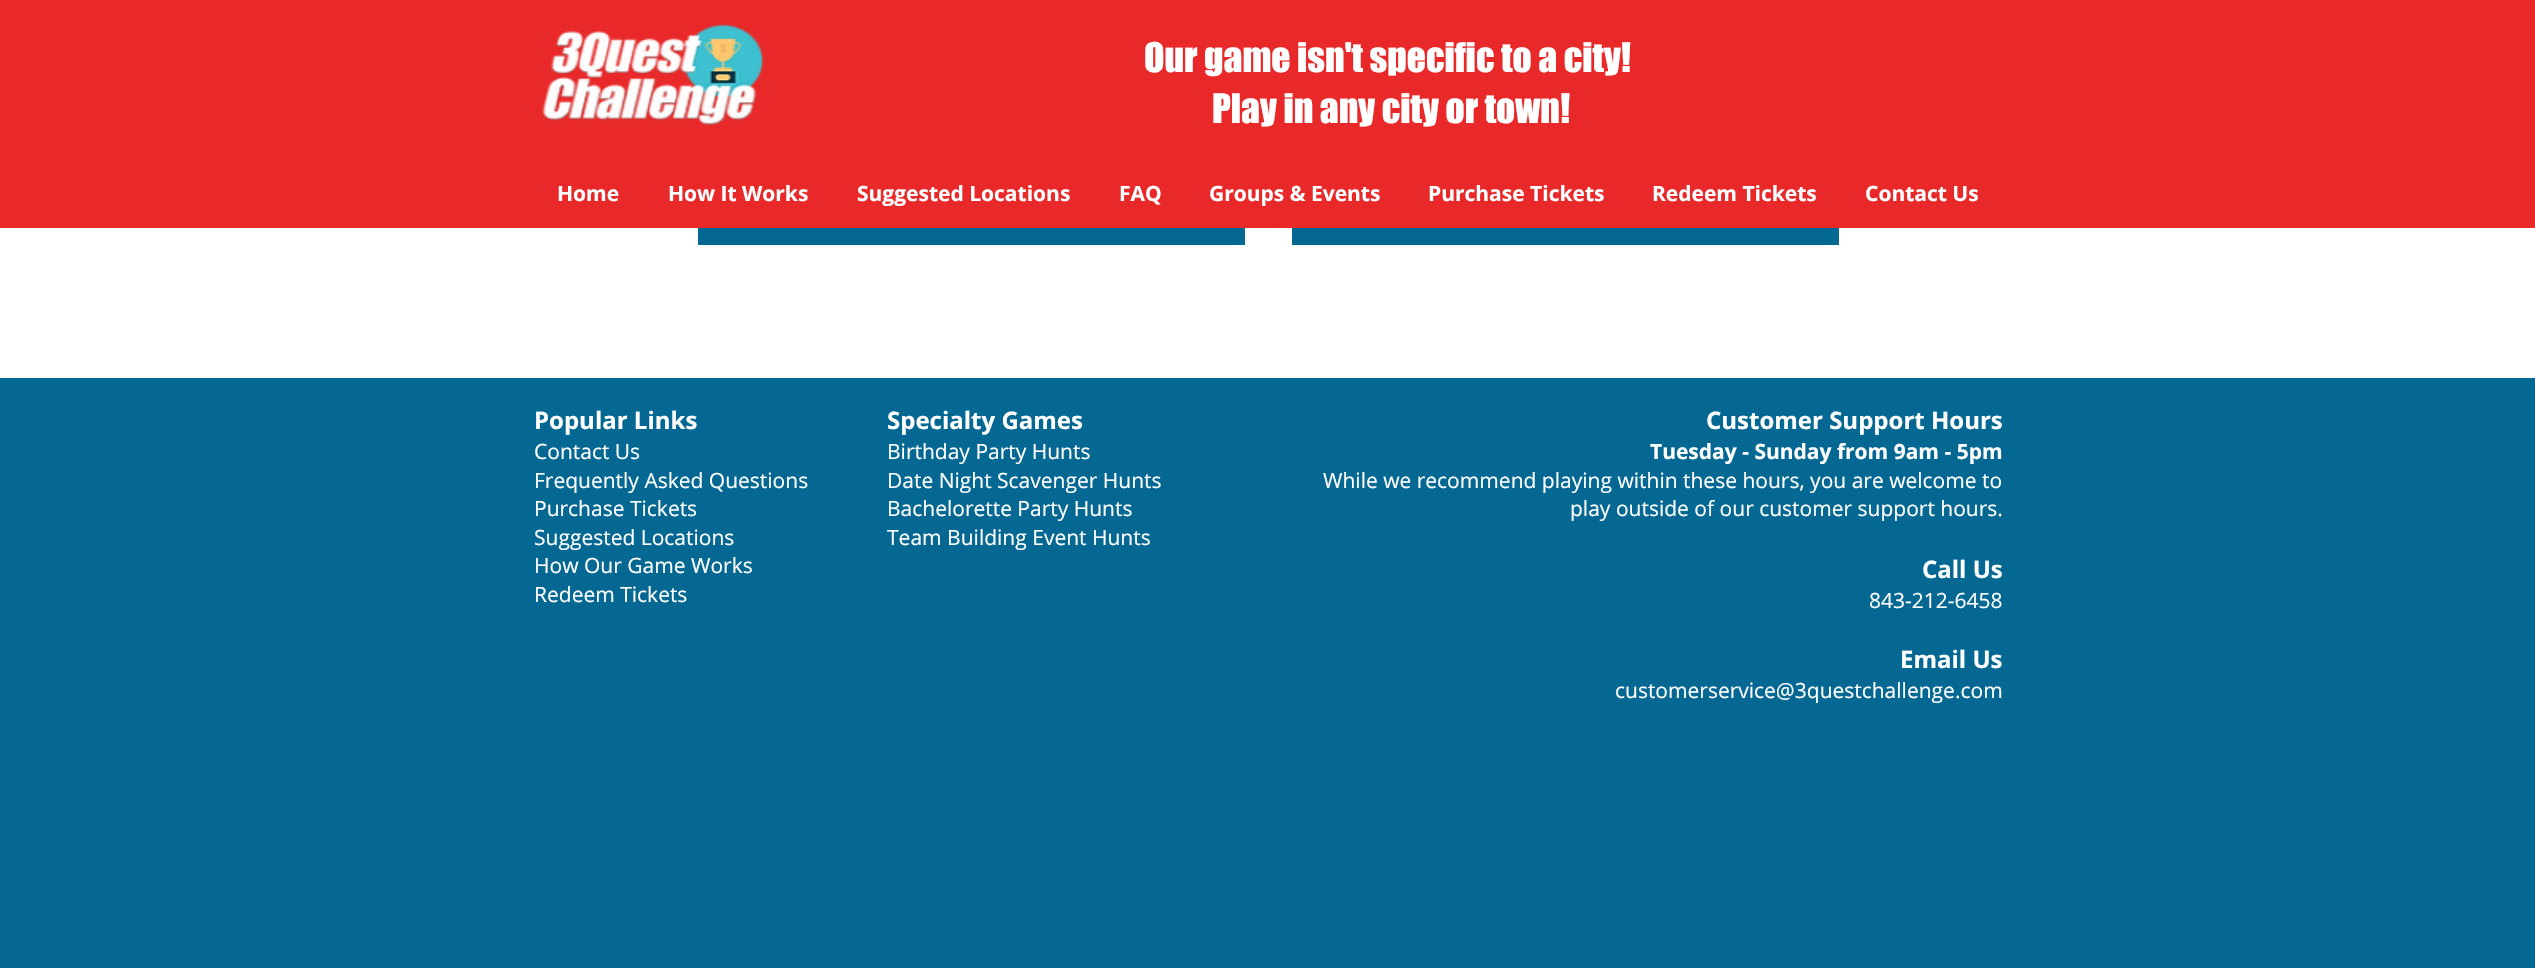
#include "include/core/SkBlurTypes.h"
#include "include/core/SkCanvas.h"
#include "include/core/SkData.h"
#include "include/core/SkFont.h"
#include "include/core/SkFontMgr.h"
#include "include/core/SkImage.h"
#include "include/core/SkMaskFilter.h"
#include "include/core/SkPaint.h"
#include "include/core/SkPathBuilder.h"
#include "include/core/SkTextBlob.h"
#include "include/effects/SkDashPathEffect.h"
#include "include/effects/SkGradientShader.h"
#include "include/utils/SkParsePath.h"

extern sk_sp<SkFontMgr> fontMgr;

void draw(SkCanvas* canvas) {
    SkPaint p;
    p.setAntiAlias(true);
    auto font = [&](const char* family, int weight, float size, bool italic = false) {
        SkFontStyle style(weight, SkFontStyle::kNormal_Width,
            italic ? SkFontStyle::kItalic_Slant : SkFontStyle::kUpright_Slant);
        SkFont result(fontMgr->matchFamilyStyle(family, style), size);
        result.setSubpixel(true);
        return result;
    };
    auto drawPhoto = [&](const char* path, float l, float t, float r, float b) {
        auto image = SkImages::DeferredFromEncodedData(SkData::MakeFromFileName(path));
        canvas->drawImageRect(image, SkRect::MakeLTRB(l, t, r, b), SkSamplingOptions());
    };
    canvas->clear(0xFFFFFFFF);
    p.setColor(0xFFE92929);
    canvas->drawRect(SkRect::MakeLTRB(0, 0, 2535, 228), p);
    drawPhoto("media/1.png", 542, 24, 764, 125);
    auto font1 = font("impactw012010", 400, 37.5f);
    p.setColor(0xFFFFFFFF);
    canvas->drawString("Our game isn't specific to a city!", 1144, 72, font1, p);
    canvas->drawString("Play in any city or town!", 1212, 123, font1, p);
    auto font2 = font("Open Sans", 700, 21);
    {
        const struct { const char* s; float x, y; } items[] = {
            {"Home", 557, 201},
            {"How It Works", 668, 201},
            {"Suggested Locations", 857, 201},
            {"FAQ", 1119, 201},
            {"Groups & Events", 1209, 201},
            {"Purchase Tickets", 1428, 201},
            {"Redeem Tickets", 1652, 201},
            {"Contact Us", 1865, 201},
        };
        for (auto [s, x, y] : items) {
            canvas->drawString(s, x, y, font2, p);
        }
    }
    {
        const struct { float l, t, r, b; SkColor color; } items[] = {
            {698, 228, 1245, 245, 0xFF046893},
            {1292, 228, 1839, 245, 0xFF046893},
            {0, 378, 2535, 968, 0xFF046893},
        };
        for (auto [l, t, r, b, color] : items) {
            p.setColor(color);
            canvas->drawRect(SkRect::MakeLTRB(l, t, r, b), p);
        }
    }
    auto font3 = font("Open Sans", 700, 24);
    p.setColor(0xFFFFFFFF);
    canvas->drawString("Popular Links", 534, 429, font3, p);
    auto font4 = font("Open Sans", 400, 21);
    {
        const struct { const char* s; float x, y; } items[] = {
            {"Contact Us", 534, 459},
            {"Frequently Asked Questions", 534, 488},
            {"Purchase Tickets", 534, 516},
            {"Suggested Locations", 534, 545},
            {"How Our Game Works", 534, 573},
            {"Redeem Tickets", 534, 602},
        };
        for (auto [s, x, y] : items) {
            canvas->drawString(s, x, y, font4, p);
        }
    }
    canvas->drawString("Specialty Games", 887, 429, font3, p);
    {
        const struct { const char* s; float x, y; } items[] = {
            {"Birthday Party Hunts", 887, 459},
            {"Date Night Scavenger Hunts", 887, 488},
            {"Bachelorette Party Hunts", 887, 516},
            {"Team Building Event Hunts", 887, 545},
        };
        for (auto [s, x, y] : items) {
            canvas->drawString(s, x, y, font4, p);
        }
    }
    canvas->drawString("Customer Support Hours", 1706, 429, font3, p);
    canvas->drawString("Tuesday - Sunday from 9am - 5pm", 1650, 459, font2, p);
    canvas->drawString("While we recommend playing within these hours, you are welcome to", 1323, 488, font4, p);
    canvas->drawString("play outside of our customer support hours.", 1570, 516, font4, p);
    canvas->drawString("Call Us", 1922, 578, font3, p);
    canvas->drawString("843-212-6458", 1869, 608, font4, p);
    canvas->drawString("Email Us", 1900, 668, font3, p);
    canvas->drawString("customerservice@3questchallenge.com", 1615, 698, font4, p);
}
